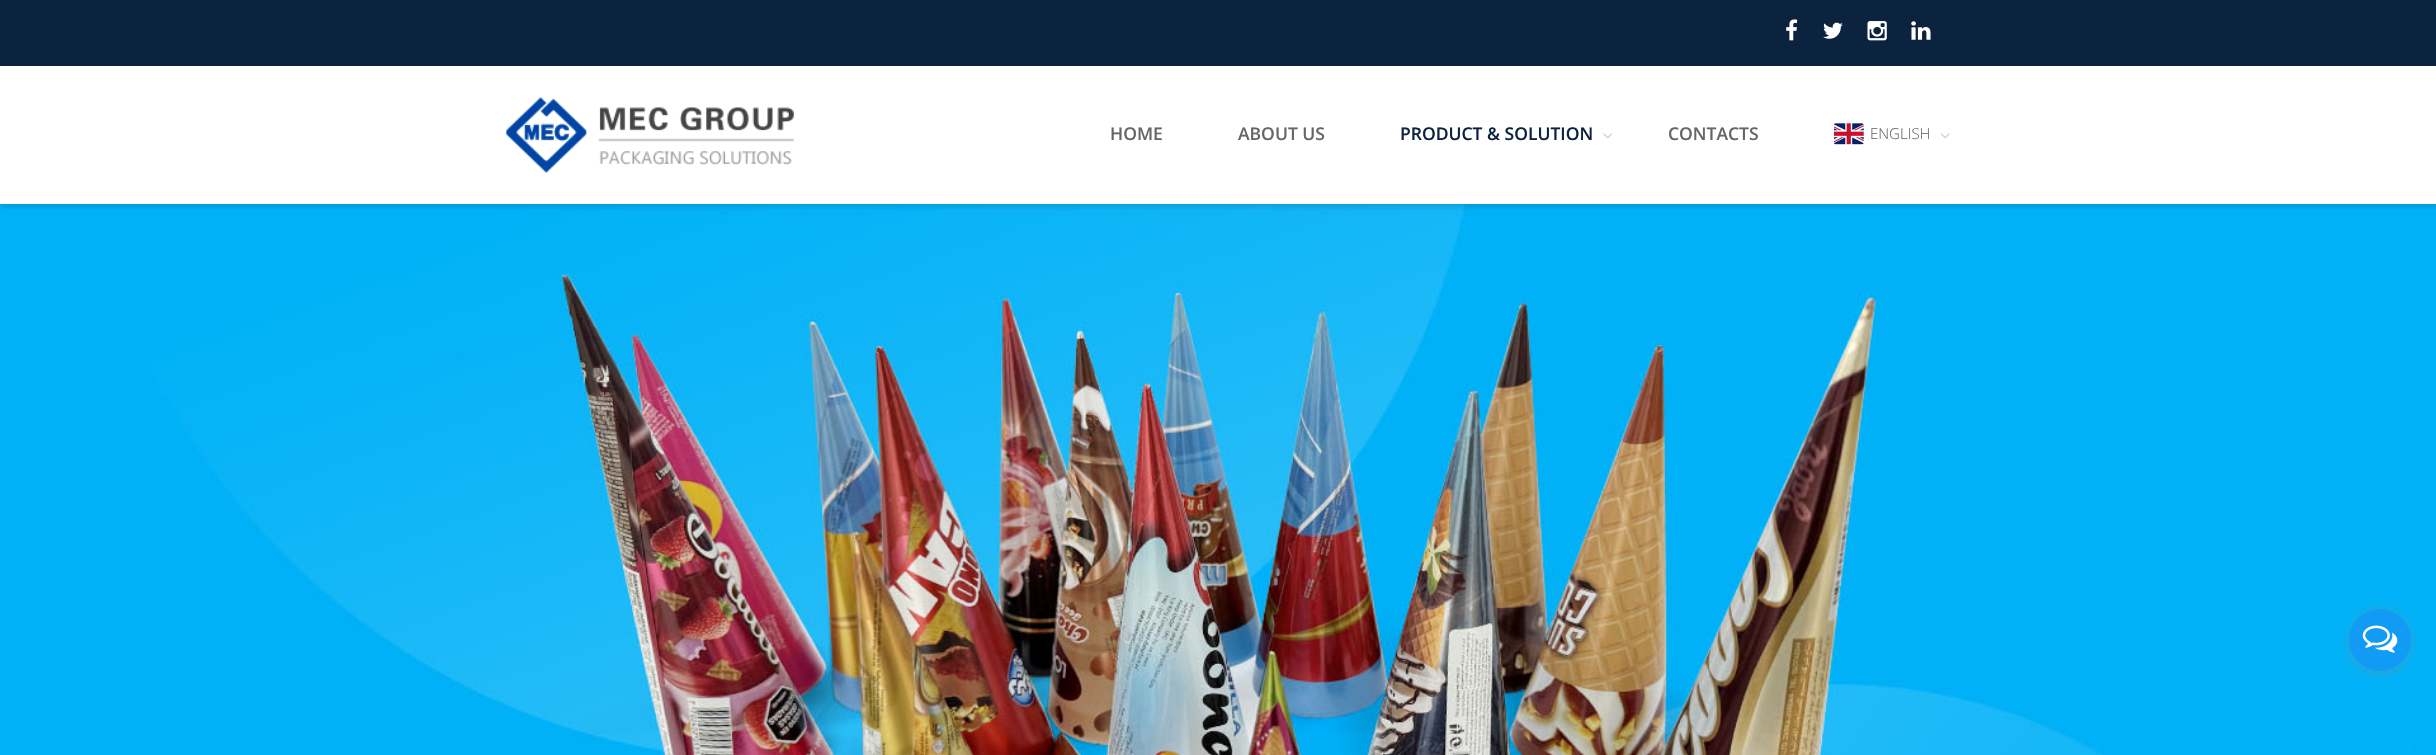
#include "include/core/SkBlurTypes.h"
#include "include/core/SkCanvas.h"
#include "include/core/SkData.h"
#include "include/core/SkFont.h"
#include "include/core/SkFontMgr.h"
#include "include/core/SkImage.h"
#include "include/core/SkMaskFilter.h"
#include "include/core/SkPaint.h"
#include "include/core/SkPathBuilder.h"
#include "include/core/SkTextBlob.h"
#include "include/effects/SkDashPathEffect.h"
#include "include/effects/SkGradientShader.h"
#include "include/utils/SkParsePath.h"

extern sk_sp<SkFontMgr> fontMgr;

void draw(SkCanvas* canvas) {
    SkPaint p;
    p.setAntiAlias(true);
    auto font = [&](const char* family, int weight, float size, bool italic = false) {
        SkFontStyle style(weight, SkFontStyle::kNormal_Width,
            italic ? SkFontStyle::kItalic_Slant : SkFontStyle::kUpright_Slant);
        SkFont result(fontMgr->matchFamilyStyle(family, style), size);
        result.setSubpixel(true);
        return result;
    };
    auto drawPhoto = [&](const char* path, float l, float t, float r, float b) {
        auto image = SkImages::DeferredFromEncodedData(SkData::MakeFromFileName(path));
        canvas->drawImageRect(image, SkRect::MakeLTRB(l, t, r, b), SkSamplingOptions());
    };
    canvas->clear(0xFFFFFFFF);
    drawPhoto("media/9.png", 0, 204, 2436, 755);
    p.setColor(0x1A000000);
    p.setMaskFilter(SkMaskFilter::MakeBlur(kNormal_SkBlurStyle, 2));
    canvas->drawRect(SkRect::MakeLTRB(1, 4, 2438, 208), p);
    p.setMaskFilter(nullptr);
    p.setColor(0xFFFFFFFF);
    canvas->drawRect(SkRect::MakeLTRB(0, 66, 2436, 204), p);
    p.setColor(0xFF0C2340);
    canvas->drawRect(SkRect::MakeLTRB(0, 0, 2436, 66), p);
    drawPhoto("media/1.png", 1786, 19, 1798, 41);
    drawPhoto("media/2.png", 1823, 22, 1843, 39);
    drawPhoto("media/3.png", 1867, 21, 1887, 41);
    drawPhoto("media/4.png", 1911, 21, 1931, 40);
    drawPhoto("media/5.png", 506, 97, 794, 173);
    auto font1 = font("Open Sans", 600, 17.5f);
    p.setColor(0xFF666666);
    canvas->drawString("HOME", 1110, 140, font1, p);
    canvas->drawString("ABOUT US", 1238, 140, font1, p);
    p.setColor(0xFF0C2340);
    canvas->drawString("PRODUCT & SOLUTION", 1400, 140, font1, p);
    drawPhoto("media/6.png", 1603, 133, 1612, 139);
    p.setColor(0xFF666666);
    canvas->drawString("CONTACTS", 1668, 140, font1, p);
    drawPhoto("media/7.png", 1834, 123, 1864, 145);
    auto font2 = font("Open Sans", 300, 15);
    canvas->drawString("ENGLISH", 1870, 139, font2, p);
    drawPhoto("media/8.png", 1941, 133, 1950, 139);
    p.setColor(0xFF01A7EA);
    canvas->drawCircle(2410, 747, 1.5f, p);
    p.setStyle(SkPaint::kStroke_Style);
    p.setStrokeWidth(1);
    p.setColor(0xFF12B6F8);
    canvas->drawCircle(2410, 747, 1.5f, p);
    p.setStyle(SkPaint::kFill_Style);
    p.setColor(0x66888888);
    p.setMaskFilter(SkMaskFilter::MakeBlur(kNormal_SkBlurStyle, 4.5f));
    canvas->drawRoundRect(SkRect::MakeLTRB(2349, 610, 2411, 673), 31, 31, p);
    p.setMaskFilter(nullptr);
    p.setColor(0xFF129BF4);
    canvas->drawCircle(2380, 640, 31, p);
    drawPhoto("media/10.png", 2362, 625, 2398, 653);
}
